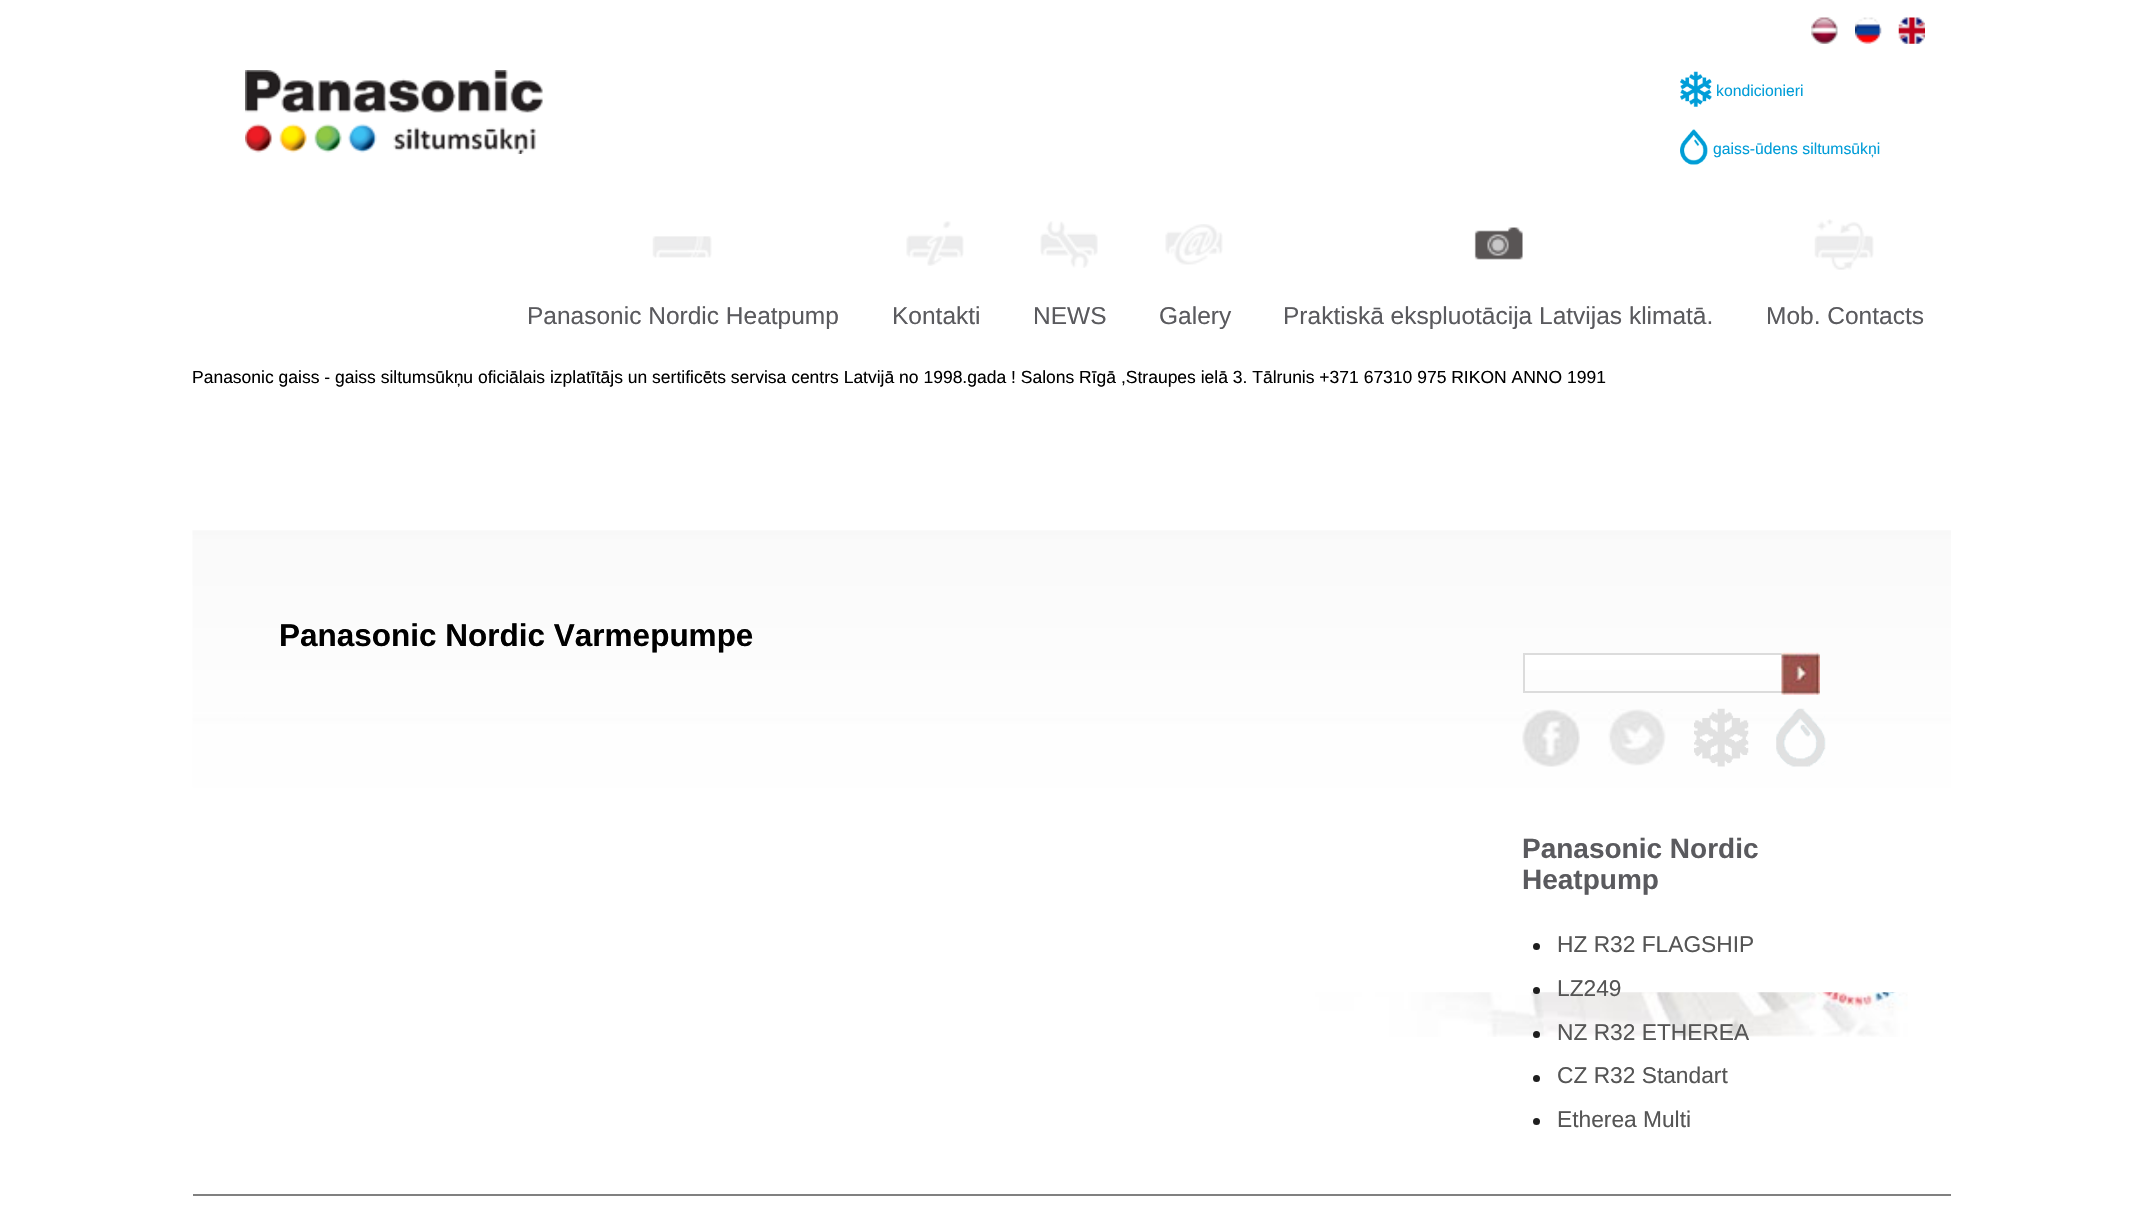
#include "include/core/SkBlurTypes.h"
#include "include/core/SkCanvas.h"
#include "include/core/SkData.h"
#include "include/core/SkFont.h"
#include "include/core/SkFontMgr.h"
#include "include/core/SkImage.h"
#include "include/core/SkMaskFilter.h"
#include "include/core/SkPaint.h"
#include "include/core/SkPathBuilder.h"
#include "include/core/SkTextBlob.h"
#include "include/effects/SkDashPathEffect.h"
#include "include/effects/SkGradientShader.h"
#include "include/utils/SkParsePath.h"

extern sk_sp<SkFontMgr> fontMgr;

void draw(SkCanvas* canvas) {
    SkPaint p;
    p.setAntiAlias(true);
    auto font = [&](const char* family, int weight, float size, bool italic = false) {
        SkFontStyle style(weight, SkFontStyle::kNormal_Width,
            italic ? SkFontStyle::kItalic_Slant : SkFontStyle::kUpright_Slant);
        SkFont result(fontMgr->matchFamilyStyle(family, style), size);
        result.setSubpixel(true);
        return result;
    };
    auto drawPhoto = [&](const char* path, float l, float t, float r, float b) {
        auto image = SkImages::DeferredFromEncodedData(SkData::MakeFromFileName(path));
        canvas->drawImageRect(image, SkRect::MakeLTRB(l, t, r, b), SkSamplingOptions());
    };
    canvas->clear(0xFFFFFFFF);
    drawPhoto("media/1.png", 245, 70, 543, 154);
    drawPhoto("media/2.png", 1811, 17, 1838, 44);
    drawPhoto("media/3.png", 1855, 17, 1882, 44);
    drawPhoto("media/4.png", 1898, 17, 1925, 44);
    drawPhoto("media/5.png", 1680, 71, 1712, 107);
    auto font1 = font("Liberation Sans", 400, 15.75f);
    p.setColor(0xFF019DD8);
    canvas->drawString("kondicionieri", 1716, 96, font1, p);
    drawPhoto("media/6.png", 1680, 129, 1708, 165);
    canvas->drawString("gaiss-ūdens siltumsūkņi", 1713, 154, font1, p);
    drawPhoto("media/7.png", 652, 236, 712, 258);
    auto font2 = font("Liberation Sans", 400, 24.5f);
    p.setColor(0xFF5A5A5E);
    canvas->drawString("Panasonic Nordic Heatpump", 527, 324, font2, p);
    drawPhoto("media/8.png", 906, 221, 964, 266);
    canvas->drawString("Kontakti", 892, 324, font2, p);
    drawPhoto("media/9.png", 1040, 221, 1098, 268);
    canvas->drawString("NEWS", 1033, 324, font2, p);
    drawPhoto("media/10.png", 1165, 224, 1223, 265);
    canvas->drawString("Galery", 1159, 324, font2, p);
    drawPhoto("media/11.png", 1474, 227, 1523, 260);
    canvas->drawString("Praktiskā ekspluotācija Latvijas klimatā.", 1283, 324, font2, p);
    drawPhoto("media/12.png", 1814, 219, 1874, 270);
    canvas->drawString("Mob. Contacts", 1766, 324, font2, p);
    auto font3 = font("Liberation Sans", 400, 17.5f);
    p.setColor(0xFF000000);
    canvas->drawString("Panasonic gaiss - gaiss siltumsūkņu oficiālais izplatītājs un sertificēts servisa centrs Latvijā no 1998.gada ! Salons Rīgā ,Straupes ielā 3. Tālrunis +371 67310 975 RIKON ANNO 1991", 192, 383, font3, p);
    drawPhoto("media/19.png", 1315, 992, 1932, 1037);
    drawPhoto("media/13.png", 192, 530, 1951, 993);
    auto font4 = font("Liberation Sans", 700, 31.5f);
    canvas->drawString("Panasonic Nordic Varmepumpe", 279, 646, font4, p);
    p.setColor(0xFFFFFFFF);
    canvas->drawRect(SkRect::MakeLTRB(1525, 655, 1782, 670), p);
    p.setStyle(SkPaint::kStroke_Style);
    p.setStrokeWidth(2);
    p.setColor(0xFFDCDCDC);
    canvas->drawRect(SkRect::MakeLTRB(1524, 654, 1805, 692), p);
    drawPhoto("media/14.png", 1781, 652, 1820, 695);
    drawPhoto("media/15.png", 1522, 709, 1580, 767);
    drawPhoto("media/16.png", 1608, 709, 1666, 766);
    drawPhoto("media/17.png", 1694, 708, 1749, 767);
    drawPhoto("media/18.png", 1776, 708, 1826, 767);
    auto font5 = font("Liberation Sans", 700, 28);
    p.setStyle(SkPaint::kFill_Style);
    p.setColor(0xFF5A5A5E);
    canvas->drawString("Panasonic Nordic", 1522, 858, font5, p);
    canvas->drawString("Heatpump", 1522, 889, font5, p);
    p.setColor(0xFF1E1E1E);
    canvas->drawCircle(1536.5f, 946.5f, 3.5f, p);
    auto font6 = font("Liberation Sans", 400, 22.75f);
    p.setColor(0xFF555555);
    canvas->drawString("HZ R32 FLAGSHIP", 1557, 952, font6, p);
    p.setColor(0xFF1E1E1E);
    canvas->drawCircle(1536.5f, 990.5f, 3.5f, p);
    p.setColor(0xFF555555);
    canvas->drawString("LZ249", 1557, 996, font6, p);
    p.setColor(0xFF1E1E1E);
    canvas->drawCircle(1536.5f, 1034.5f, 3.5f, p);
    p.setColor(0xFF555555);
    canvas->drawString("NZ R32 ETHEREA", 1557, 1040, font6, p);
    p.setColor(0xFF1E1E1E);
    canvas->drawCircle(1536.5f, 1078.5f, 3.5f, p);
    p.setColor(0xFF555555);
    canvas->drawString("CZ R32 Standart", 1557, 1083, font6, p);
    p.setColor(0xFF1E1E1E);
    canvas->drawCircle(1536.5f, 1121.5f, 3.5f, p);
    p.setColor(0xFF555555);
    canvas->drawString("Etherea Multi", 1557, 1127, font6, p);
    p.setColor(0xFF808080);
    canvas->drawRect(SkRect::MakeLTRB(193, 1194, 1951, 1196), p);
}
